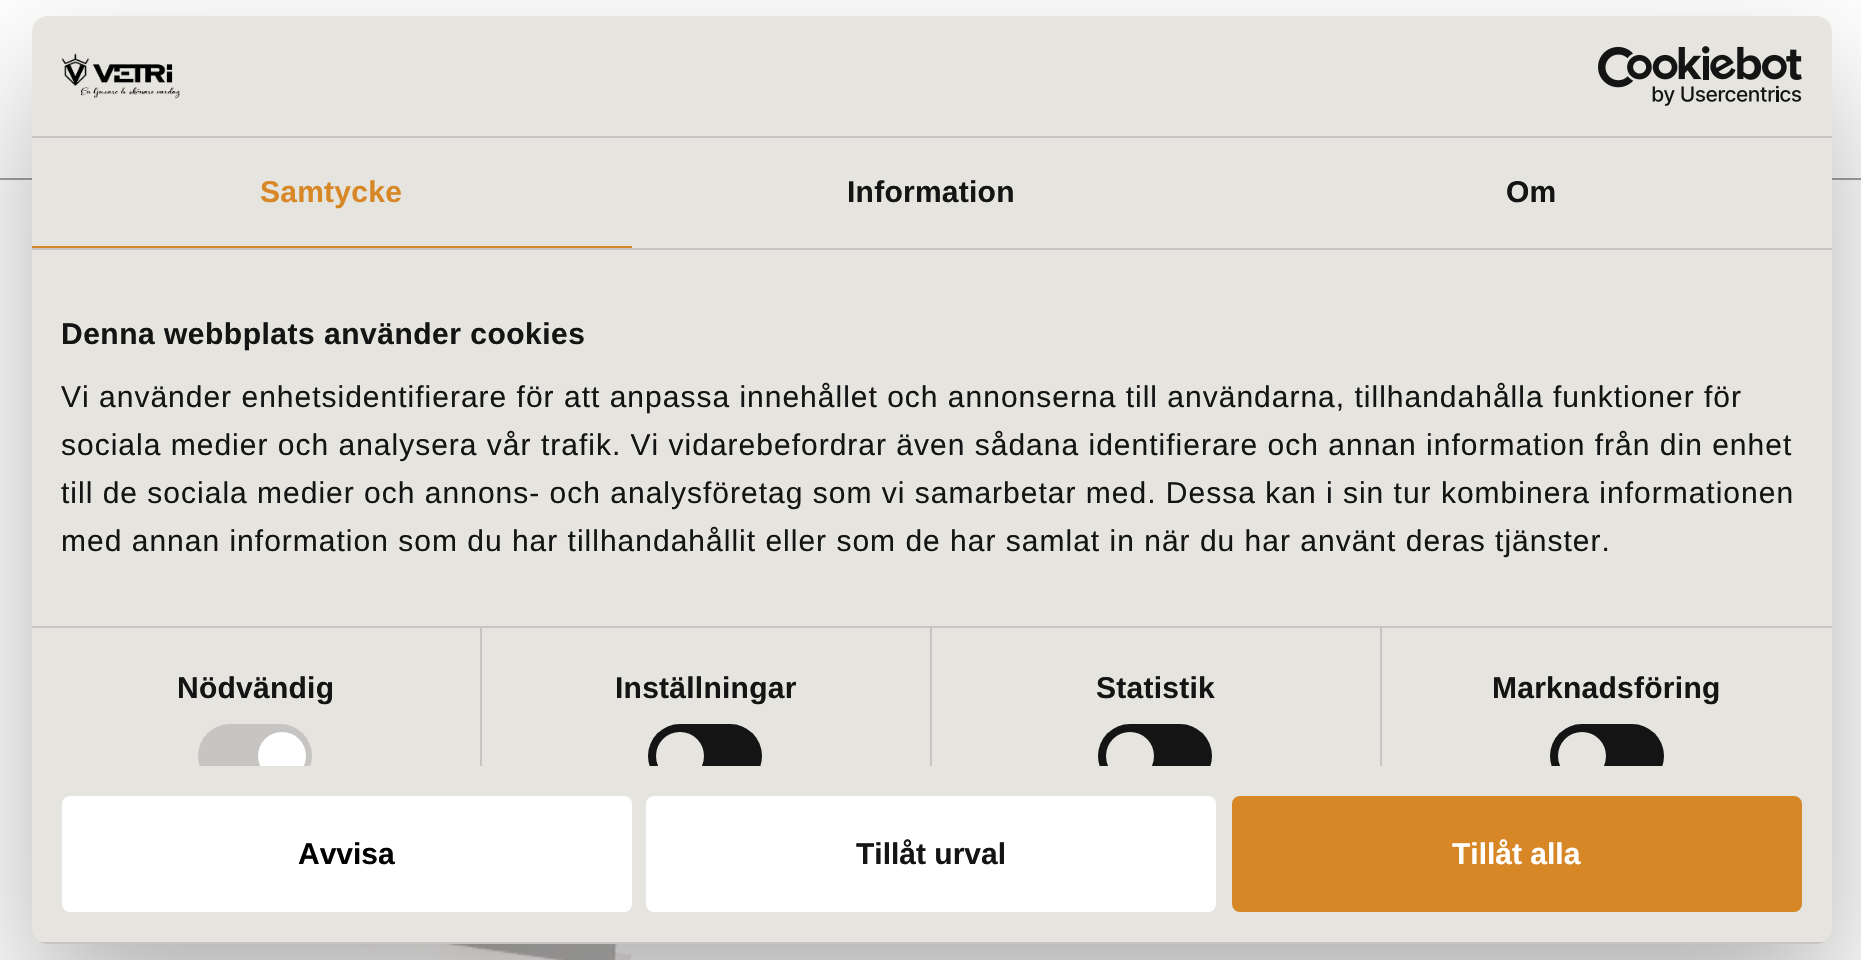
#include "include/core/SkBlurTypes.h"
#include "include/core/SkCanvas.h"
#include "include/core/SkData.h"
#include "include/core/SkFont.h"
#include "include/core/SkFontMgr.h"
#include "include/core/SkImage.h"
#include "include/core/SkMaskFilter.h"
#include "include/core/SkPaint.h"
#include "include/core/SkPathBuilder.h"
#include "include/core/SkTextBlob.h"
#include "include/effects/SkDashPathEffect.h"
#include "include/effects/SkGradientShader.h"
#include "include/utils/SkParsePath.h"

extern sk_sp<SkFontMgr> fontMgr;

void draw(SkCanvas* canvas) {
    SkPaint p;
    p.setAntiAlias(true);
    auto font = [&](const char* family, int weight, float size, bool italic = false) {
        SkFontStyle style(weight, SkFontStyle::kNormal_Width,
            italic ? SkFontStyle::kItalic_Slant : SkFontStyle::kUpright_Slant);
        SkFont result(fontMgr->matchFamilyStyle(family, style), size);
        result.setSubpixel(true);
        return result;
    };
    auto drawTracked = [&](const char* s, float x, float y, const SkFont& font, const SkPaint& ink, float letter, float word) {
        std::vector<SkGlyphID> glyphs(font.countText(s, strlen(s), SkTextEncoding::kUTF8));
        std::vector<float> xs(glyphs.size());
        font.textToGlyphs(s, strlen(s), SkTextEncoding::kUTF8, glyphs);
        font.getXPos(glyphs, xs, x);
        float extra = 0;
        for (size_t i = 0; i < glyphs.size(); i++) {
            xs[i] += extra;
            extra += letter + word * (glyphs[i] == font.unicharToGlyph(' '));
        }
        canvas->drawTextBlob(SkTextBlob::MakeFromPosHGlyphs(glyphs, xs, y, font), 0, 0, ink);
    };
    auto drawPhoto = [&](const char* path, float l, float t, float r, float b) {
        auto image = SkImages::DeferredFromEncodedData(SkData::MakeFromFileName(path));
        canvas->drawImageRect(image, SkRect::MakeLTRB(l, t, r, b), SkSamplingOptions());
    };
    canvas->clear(0xFFFFFFFF);
    p.setColor(0xFFA4A3A3);
    canvas->drawRect(SkRect::MakeLTRB(0, 178, 1861, 180), p);
    drawPhoto("media/3.png", 361, 944, 632, 960);
    p.setColor(0x4D000000);
    p.setMaskFilter(SkMaskFilter::MakeBlur(kNormal_SkBlurStyle, 68));
    canvas->drawRoundRect(SkRect::MakeLTRB(32, 80, 1832, 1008), 16, 16, p);
    p.setMaskFilter(nullptr);
    p.setColor(0xFFE6E4DE);
    canvas->drawRoundRect(SkRect::MakeLTRB(32, 16, 1832, 944), 16, 16, p);
    p.setColor(0xFFC6C5C3);
    canvas->drawRect(SkRect::MakeLTRB(32, 136, 1832, 138), p);
    drawPhoto("media/1.png", 61, 53, 180, 99);
    drawPhoto("media/2.png", 1598, 46, 1802, 106);
    canvas->drawRect(SkRect::MakeLTRB(32, 248, 1832, 250), p);
    p.setColor(0xFFD88727);
    canvas->drawRect(SkRect::MakeLTRB(32, 246, 632, 248), p);
    auto font1 = font("Liberation Sans", 700, 30);
    drawTracked("Samtycke", 260, 202, font1, p, 0.25f, 0);
    p.setColor(0xFF141414);
    drawTracked("Information", 847, 202, font1, p, 0.25f, 0);
    drawTracked("Om", 1506, 202, font1, p, 0.25f, 0);
    p.setColor(0xFFC6C5C3);
    canvas->drawRect(SkRect::MakeLTRB(32, 626, 1832, 628), p);
    p.setColor(0xFF141414);
    drawTracked("Denna webbplats använder cookies", 61, 344, font1, p, 0.5f, 0);
    auto font2 = font("Liberation Sans", 400, 30);
    {
        const struct { const char* s; float x, y; } items[] = {
            {"Vi använder enhetsidentifierare för att anpassa innehållet och annonserna till användarna, tillhandahålla funktioner för", 61, 407},
            {"sociala medier och analysera vår trafik. Vi vidarebefordrar även sådana identifierare och annan information från din enhet", 61, 455},
            {"till de sociala medier och annons- och analysföretag som vi samarbetar med. Dessa kan i sin tur kombinera informationen", 61, 503},
            {"med annan information som du har tillhandahållit eller som de har samlat in när du har använt deras tjänster.", 61, 551},
        };
        for (auto [s, x, y] : items) {
            drawTracked(s, x, y, font2, p, 1, 0);
        }
    }
    p.setColor(0xFFC6C5C3);
    canvas->drawRect(SkRect::MakeLTRB(480, 628, 482, 766), p);
    p.setColor(0xFF141414);
    drawTracked("Nödvändig", 177, 698, font1, p, 0.25f, 0);
    canvas->save();
    canvas->clipRect(SkRect::MakeLTRB(32, 250, 1832, 766));
    p.setColor(0xFFC6C5C3);
    canvas->drawRoundRect(SkRect::MakeLTRB(198, 724, 312, 788), 32, 32, p);
    p.setColor(0xFFFFFFFF);
    canvas->drawCircle(282, 756, 24, p);
    canvas->restore();
    p.setColor(0xFFC6C5C3);
    canvas->drawRect(SkRect::MakeLTRB(930, 628, 932, 766), p);
    p.setColor(0xFF141414);
    drawTracked("Inställningar", 615, 698, font1, p, 0.25f, 0);
    canvas->save();
    canvas->clipRect(SkRect::MakeLTRB(32, 250, 1832, 766));
    canvas->drawRoundRect(SkRect::MakeLTRB(648, 724, 762, 788), 32, 32, p);
    p.setColor(0xFFE6E4DE);
    canvas->drawCircle(680, 756, 24, p);
    canvas->restore();
    p.setColor(0xFFC6C5C3);
    canvas->drawRect(SkRect::MakeLTRB(1380, 628, 1382, 766), p);
    p.setColor(0xFF141414);
    drawTracked("Statistik", 1096, 698, font1, p, 0.25f, 0);
    canvas->save();
    canvas->clipRect(SkRect::MakeLTRB(32, 250, 1832, 766));
    canvas->drawRoundRect(SkRect::MakeLTRB(1098, 724, 1212, 788), 32, 32, p);
    p.setColor(0xFFE6E4DE);
    canvas->drawCircle(1130, 756, 24, p);
    canvas->restore();
    p.setColor(0xFF141414);
    drawTracked("Marknadsföring", 1492, 698, font1, p, 0.25f, 0);
    canvas->save();
    canvas->clipRect(SkRect::MakeLTRB(32, 250, 1832, 766));
    canvas->drawRoundRect(SkRect::MakeLTRB(1550, 724, 1664, 788), 32, 32, p);
    p.setColor(0xFFE6E4DE);
    canvas->drawCircle(1582, 756, 24, p);
    canvas->restore();
    canvas->save();
    canvas->clipPath(SkPathBuilder().moveTo(48, 16).lineTo(1816, 16).cubicTo(1825, 16, 1832, 23, 1832, 32).lineTo(1832, 928).cubicTo(1832, 937, 1825, 944, 1816, 944).lineTo(48, 944).cubicTo(39, 944, 32, 937, 32, 928).lineTo(32, 32).cubicTo(32, 23, 39, 16, 48, 16).close().detach(), true);
    p.setColor(0xFFC6C5C3);
    canvas->drawRect(SkRect::MakeLTRB(32, 942, 1832, 944), p);
    canvas->restore();
    p.setColor(0xFFFFFFFF);
    canvas->drawRoundRect(SkRect::MakeLTRB(64, 798, 630, 910), 6, 6, p);
    p.setStyle(SkPaint::kStroke_Style);
    p.setStrokeWidth(4);
    canvas->drawRoundRect(SkRect::MakeLTRB(64, 798, 630, 910), 6, 6, p);
    p.setStyle(SkPaint::kFill_Style);
    p.setColor(0xFF000000);
    canvas->drawString("Avvisa", 298, 864, font1, p);
    p.setColor(0xFFFFFFFF);
    canvas->drawRoundRect(SkRect::MakeLTRB(648, 798, 1214, 910), 6, 6, p);
    p.setStyle(SkPaint::kStroke_Style);
    canvas->drawRoundRect(SkRect::MakeLTRB(648, 798, 1214, 910), 6, 6, p);
    p.setStyle(SkPaint::kFill_Style);
    p.setColor(0xFF141414);
    canvas->drawString("Tillåt urval", 856, 864, font1, p);
    p.setColor(0xFFD88727);
    canvas->drawRoundRect(SkRect::MakeLTRB(1234, 798, 1800, 910), 6, 6, p);
    p.setStyle(SkPaint::kStroke_Style);
    canvas->drawRoundRect(SkRect::MakeLTRB(1234, 798, 1800, 910), 6, 6, p);
    p.setStyle(SkPaint::kFill_Style);
    p.setColor(0xFFFFFFFF);
    canvas->drawString("Tillåt alla", 1452, 864, font1, p);
}
